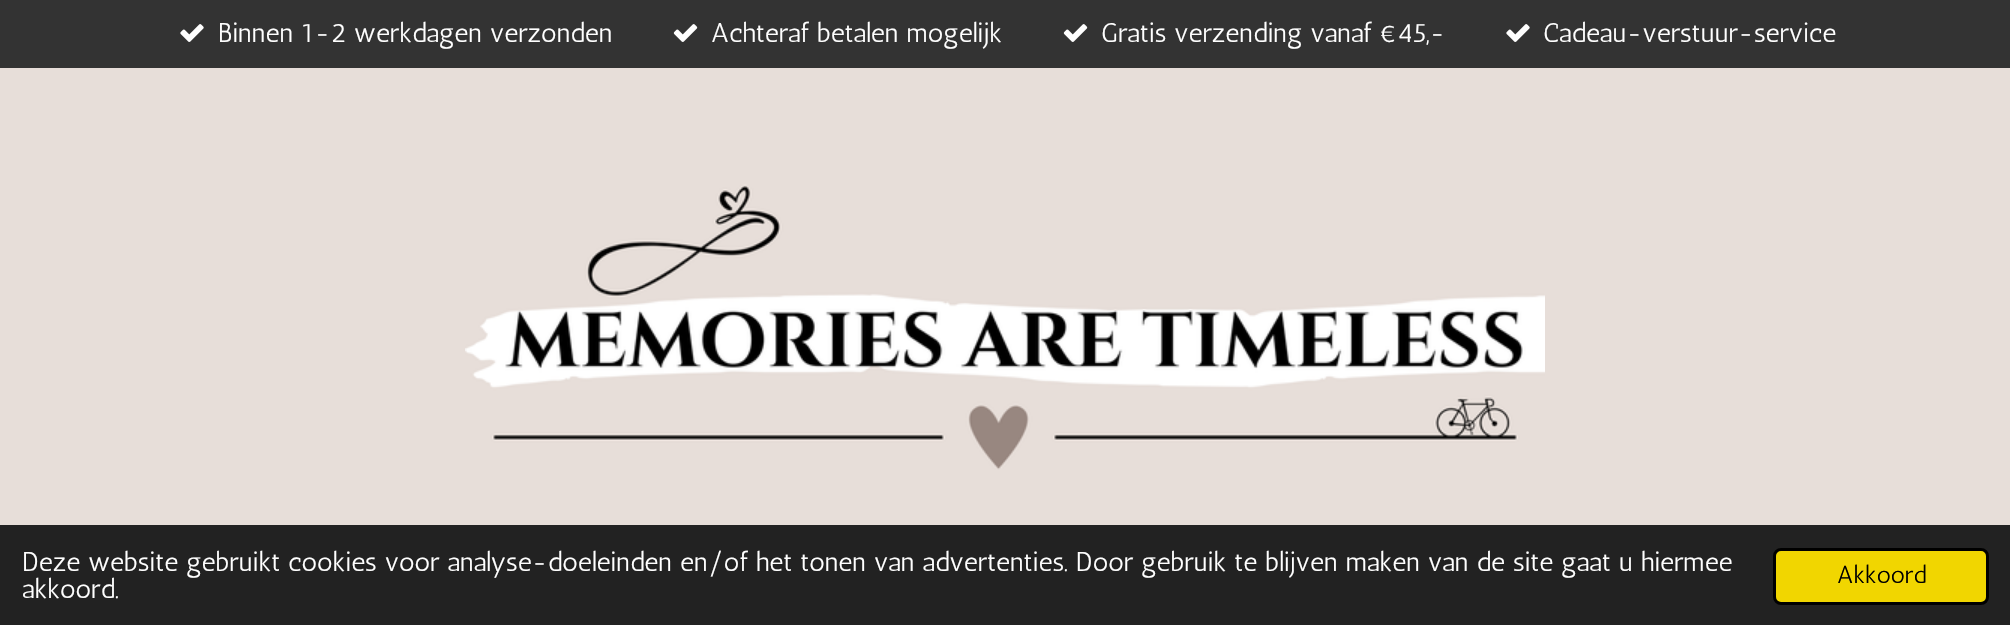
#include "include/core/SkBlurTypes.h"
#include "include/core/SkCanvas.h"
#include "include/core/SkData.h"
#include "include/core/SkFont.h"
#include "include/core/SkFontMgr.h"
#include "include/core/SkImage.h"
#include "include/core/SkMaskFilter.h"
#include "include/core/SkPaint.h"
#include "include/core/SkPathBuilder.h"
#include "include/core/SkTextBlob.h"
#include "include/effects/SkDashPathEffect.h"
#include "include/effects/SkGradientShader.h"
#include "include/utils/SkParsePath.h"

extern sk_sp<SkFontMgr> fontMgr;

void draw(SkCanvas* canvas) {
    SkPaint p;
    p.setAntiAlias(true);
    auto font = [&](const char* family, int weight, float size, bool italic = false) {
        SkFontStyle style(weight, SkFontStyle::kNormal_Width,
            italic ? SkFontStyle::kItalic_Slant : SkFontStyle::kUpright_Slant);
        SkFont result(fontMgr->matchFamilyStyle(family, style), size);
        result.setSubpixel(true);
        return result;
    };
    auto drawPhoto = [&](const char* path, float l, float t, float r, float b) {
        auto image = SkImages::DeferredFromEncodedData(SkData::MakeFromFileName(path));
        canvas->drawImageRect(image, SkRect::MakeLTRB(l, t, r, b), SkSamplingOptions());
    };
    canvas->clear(0xFFE7DED9);
    p.setColor(0xFF333333);
    canvas->drawRect(SkRect::MakeLTRB(0, 0, 2010, 68), p);
    drawPhoto("media/1.png", 180, 24, 204, 42);
    auto font1 = font("Antic", 400, 27);
    p.setColor(0xFFFFFFFF);
    canvas->drawString("Binnen 1-2 werkdagen verzonden", 218, 42, font1, p);
    drawPhoto("media/2.png", 673, 24, 698, 42);
    canvas->drawString("Achteraf betalen mogelijk", 711, 42, font1, p);
    drawPhoto("media/2.png", 1063, 24, 1088, 42);
    canvas->drawString("Gratis verzending vanaf €45,-", 1101, 42, font1, p);
    drawPhoto("media/1.png", 1506, 24, 1530, 42);
    canvas->drawString("Cadeau-verstuur-service", 1543, 42, font1, p);
    drawPhoto("media/3.png", 465, 184, 1545, 470);
    p.setColor(0xFF222222);
    canvas->drawRect(SkRect::MakeLTRB(0, 525, 2010, 625), p);
    p.setColor(0xFFFFFFFF);
    canvas->drawString("Deze website gebruikt cookies voor analyse-doeleinden en/of het tonen van advertenties. Door gebruik te blijven maken van de site gaat u hiermee", 22, 571, font1, p);
    canvas->drawString("akkoord.", 22, 598, font1, p);
    p.setColor(0xFFF1D600);
    canvas->drawRoundRect(SkRect::MakeLTRB(1774.5f, 549.5f, 1987.5f, 603.5f), 6.5f, 6.5f, p);
    p.setStyle(SkPaint::kStroke_Style);
    p.setStrokeWidth(3);
    p.setColor(0xFF000000);
    canvas->drawRoundRect(SkRect::MakeLTRB(1774.5f, 549.5f, 1987.5f, 603.5f), 6.5f, 6.5f, p);
    auto font2 = font("Antic", 400, 24.5f);
    p.setStyle(SkPaint::kFill_Style);
    canvas->drawString("Akkoord", 1837, 583, font2, p);
}
